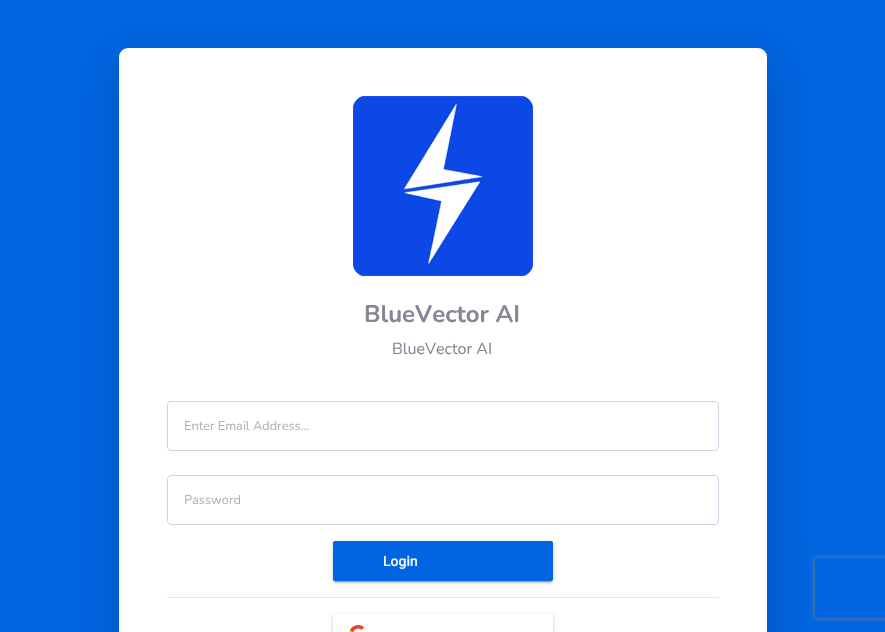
#include "include/core/SkBlurTypes.h"
#include "include/core/SkCanvas.h"
#include "include/core/SkData.h"
#include "include/core/SkFont.h"
#include "include/core/SkFontMgr.h"
#include "include/core/SkImage.h"
#include "include/core/SkMaskFilter.h"
#include "include/core/SkPaint.h"
#include "include/core/SkPathBuilder.h"
#include "include/core/SkTextBlob.h"
#include "include/effects/SkDashPathEffect.h"
#include "include/effects/SkGradientShader.h"
#include "include/utils/SkParsePath.h"

extern sk_sp<SkFontMgr> fontMgr;

void draw(SkCanvas* canvas) {
    SkPaint p;
    p.setAntiAlias(true);
    auto font = [&](const char* family, int weight, float size, bool italic = false) {
        SkFontStyle style(weight, SkFontStyle::kNormal_Width,
            italic ? SkFontStyle::kItalic_Slant : SkFontStyle::kUpright_Slant);
        SkFont result(fontMgr->matchFamilyStyle(family, style), size);
        result.setSubpixel(true);
        return result;
    };
    auto drawPhoto = [&](const char* path, float l, float t, float r, float b) {
        auto image = SkImages::DeferredFromEncodedData(SkData::MakeFromFileName(path));
        canvas->drawImageRect(image, SkRect::MakeLTRB(l, t, r, b), SkSamplingOptions());
    };
    canvas->clear(0xFF0165E1);
    p.setColor(0x2E000000);
    p.setMaskFilter(SkMaskFilter::MakeBlur(kNormal_SkBlurStyle, 24));
    canvas->drawRoundRect(SkRect::MakeLTRB(119, 64, 767, 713), 9, 9, p);
    p.setMaskFilter(nullptr);
    p.setColor(0xFFFFFFFF);
    canvas->drawRoundRect(SkRect::MakeLTRB(119, 48, 767, 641), 9, 9, p);
    drawPhoto("media/1.png", 353, 96, 533, 276);
    auto font1 = font("Nunito", 700, 24);
    p.setColor(0xFF858796);
    canvas->drawString("BlueVector AI", 364, 322, font1, p);
    auto font2 = font("Nunito", 400, 16);
    canvas->drawString("BlueVector AI", 392, 354, font2, p);
    p.setStyle(SkPaint::kStroke_Style);
    p.setStrokeWidth(1);
    p.setColor(0xFFD1D3E2);
    canvas->drawRoundRect(SkRect::MakeLTRB(167.5f, 401.5f, 718.5f, 450.5f), 3.5f, 3.5f, p);
    auto font3 = font("Nunito", 400, 12.75f);
    p.setStyle(SkPaint::kFill_Style);
    p.setColor(0xFFB1B1B1);
    canvas->drawString("Enter Email Address...", 184, 430, font3, p);
    p.setStyle(SkPaint::kStroke_Style);
    p.setColor(0xFFD1D3E2);
    canvas->drawRoundRect(SkRect::MakeLTRB(167.5f, 475.5f, 718.5f, 524.5f), 3.5f, 3.5f, p);
    p.setStyle(SkPaint::kFill_Style);
    p.setColor(0xFFB1B1B1);
    canvas->drawString("Password", 184, 504, font3, p);
    p.setColor(0x1F000000);
    p.setMaskFilter(SkMaskFilter::MakeBlur(kNormal_SkBlurStyle, 2.5f));
    canvas->drawRoundRect(SkRect::MakeLTRB(333, 542, 553, 582), 2, 2, p);
    p.setMaskFilter(nullptr);
    p.setColor(0x33000000);
    p.setMaskFilter(SkMaskFilter::MakeBlur(kNormal_SkBlurStyle, 0.5f));
    canvas->drawRect(SkRect::MakeLTRB(335, 546, 551, 582), p);
    p.setMaskFilter(nullptr);
    p.setColor(0x24000000);
    p.setMaskFilter(SkMaskFilter::MakeBlur(kNormal_SkBlurStyle, 1));
    canvas->drawRoundRect(SkRect::MakeLTRB(333, 543, 553, 583), 2, 2, p);
    p.setMaskFilter(nullptr);
    p.setColor(0xFF0165E1);
    canvas->drawRoundRect(SkRect::MakeLTRB(333, 541, 553, 581), 2, 2, p);
    auto font4 = font("Roboto", 500, 14);
    p.setColor(0xFFF8F9FA);
    canvas->drawString("Login", 383, 566, font4, p);
    p.setColor(0xFFE6E6E6);
    canvas->drawRect(SkRect::MakeLTRB(167, 597, 719, 598), p);
    canvas->save();
    canvas->clipPath(SkPathBuilder(SkPathFillType::kEvenOdd).moveTo(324, 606).lineTo(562, 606).lineTo(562, 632).lineTo(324, 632).close().moveTo(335, 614).lineTo(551, 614).cubicTo(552, 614, 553, 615, 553, 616).lineTo(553, 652).cubicTo(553, 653, 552, 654, 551, 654).lineTo(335, 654).cubicTo(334, 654, 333, 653, 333, 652).lineTo(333, 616).cubicTo(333, 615, 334, 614, 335, 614).close().detach(), true);
    p.setColor(0x1F000000);
    p.setMaskFilter(SkMaskFilter::MakeBlur(kNormal_SkBlurStyle, 2.5f));
    canvas->drawRoundRect(SkRect::MakeLTRB(333, 615, 553, 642), 2, 2, p);
    p.setMaskFilter(nullptr);
    canvas->restore();
    canvas->save();
    canvas->clipPath(SkPathBuilder(SkPathFillType::kEvenOdd).moveTo(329, 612).lineTo(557, 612).lineTo(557, 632).lineTo(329, 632).close().moveTo(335, 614).lineTo(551, 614).cubicTo(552, 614, 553, 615, 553, 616).lineTo(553, 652).cubicTo(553, 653, 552, 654, 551, 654).lineTo(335, 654).cubicTo(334, 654, 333, 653, 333, 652).lineTo(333, 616).cubicTo(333, 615, 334, 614, 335, 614).close().detach(), true);
    p.setColor(0x24000000);
    p.setMaskFilter(SkMaskFilter::MakeBlur(kNormal_SkBlurStyle, 1));
    canvas->drawRoundRect(SkRect::MakeLTRB(333, 616, 553, 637), 2, 2, p);
    p.setMaskFilter(nullptr);
    canvas->restore();
    drawPhoto("media/2.png", 349, 625, 365, 632);
    canvas->save();
    canvas->clipPath(SkPathBuilder(SkPathFillType::kEvenOdd).moveTo(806, 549).lineTo(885, 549).lineTo(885, 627).lineTo(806, 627).close().moveTo(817, 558).lineTo(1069, 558).cubicTo(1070, 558, 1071, 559, 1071, 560).lineTo(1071, 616).cubicTo(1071, 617, 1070, 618, 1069, 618).lineTo(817, 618).cubicTo(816, 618, 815, 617, 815, 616).lineTo(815, 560).cubicTo(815, 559, 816, 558, 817, 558).close().detach(), true);
    p.setColor(0xFF808080);
    p.setMaskFilter(SkMaskFilter::MakeBlur(kNormal_SkBlurStyle, 2.5f));
    canvas->drawRoundRect(SkRect::MakeLTRB(815, 558, 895, 618), 2, 2, p);
    p.setMaskFilter(nullptr);
    canvas->restore();
}
